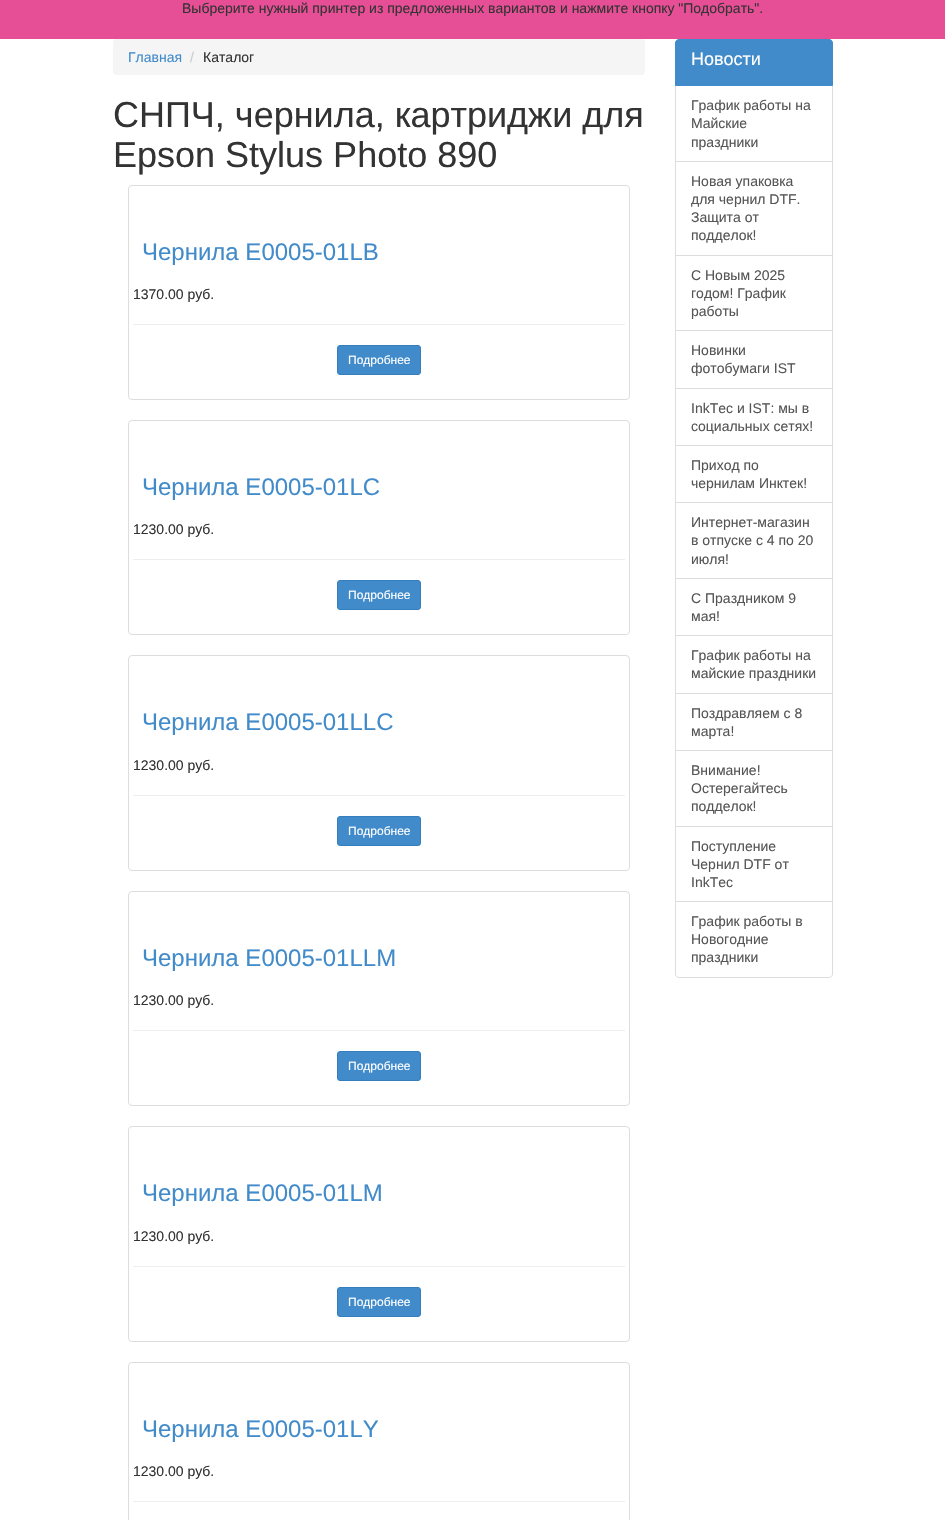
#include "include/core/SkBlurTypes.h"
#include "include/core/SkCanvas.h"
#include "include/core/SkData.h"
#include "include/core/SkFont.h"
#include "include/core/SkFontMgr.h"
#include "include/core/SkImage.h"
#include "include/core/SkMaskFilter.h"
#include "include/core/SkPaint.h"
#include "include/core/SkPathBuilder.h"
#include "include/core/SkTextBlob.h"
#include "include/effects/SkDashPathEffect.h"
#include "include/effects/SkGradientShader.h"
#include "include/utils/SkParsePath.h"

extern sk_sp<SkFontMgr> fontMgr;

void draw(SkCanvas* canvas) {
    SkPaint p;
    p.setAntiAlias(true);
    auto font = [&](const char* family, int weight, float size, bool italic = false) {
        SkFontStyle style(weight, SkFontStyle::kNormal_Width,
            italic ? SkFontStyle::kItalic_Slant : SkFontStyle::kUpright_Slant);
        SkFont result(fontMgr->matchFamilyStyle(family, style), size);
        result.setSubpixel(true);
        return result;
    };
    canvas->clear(0xFFFFFFFF);
    p.setColor(0xFFE64E95);
    canvas->drawRect(SkRect::MakeLTRB(0, 0, 945, 39), p);
    auto font1 = font("Liberation Sans", 400, 14);
    p.setColor(0xFF333333);
    canvas->drawString("Выбрерите нужный принтер из предложенных вариантов и нажмите кнопку \"Подобрать\".", 182, 13, font1, p);
    p.setColor(0xFFF5F5F5);
    canvas->drawRoundRect(SkRect::MakeLTRB(113, 39, 645, 75), 4, 4, p);
    p.setColor(0xFF428BCA);
    canvas->drawString("Главная", 128, 62, font1, p);
    p.setColor(0xFFCCCCCC);
    canvas->drawString("/", 190, 62, font1, p);
    p.setColor(0xFF333333);
    canvas->drawString("Каталог", 203, 62, font1, p);
    auto font2 = font("Liberation Sans", 400, 36);
    canvas->drawString("СНПЧ, чернила, картриджи для", 113, 127, font2, p);
    canvas->drawString("Epson Stylus Photo 890", 113, 167, font2, p);
    p.setStyle(SkPaint::kStroke_Style);
    p.setStrokeWidth(1);
    p.setColor(0xFFDDDDDD);
    canvas->drawRoundRect(SkRect::MakeLTRB(128.5f, 185.5f, 629.5f, 399.5f), 3.5f, 3.5f, p);
    auto font3 = font("Liberation Sans", 400, 24);
    p.setStyle(SkPaint::kFill_Style);
    p.setColor(0xFF428BCA);
    canvas->drawString("Чернила E0005-01LB", 142, 260, font3, p);
    p.setColor(0xFF333333);
    canvas->drawString("1370.00 руб.", 133, 299, font1, p);
    p.setColor(0xFFEEEEEE);
    canvas->drawRect(SkRect::MakeLTRB(133, 324, 625, 325), p);
    p.setColor(0xFF428BCA);
    canvas->drawRoundRect(SkRect::MakeLTRB(337.5f, 345.5f, 420.5f, 374.5f), 2.5f, 2.5f, p);
    p.setStyle(SkPaint::kStroke_Style);
    p.setColor(0xFF357EBD);
    canvas->drawRoundRect(SkRect::MakeLTRB(337.5f, 345.5f, 420.5f, 374.5f), 2.5f, 2.5f, p);
    auto font4 = font("Liberation Sans", 400, 12);
    p.setStyle(SkPaint::kFill_Style);
    p.setColor(0xFFFFFFFF);
    canvas->drawString("Подробнее", 348, 364, font4, p);
    p.setStyle(SkPaint::kStroke_Style);
    p.setColor(0xFFDDDDDD);
    canvas->drawRoundRect(SkRect::MakeLTRB(128.5f, 420.5f, 629.5f, 634.5f), 3.5f, 3.5f, p);
    p.setStyle(SkPaint::kFill_Style);
    p.setColor(0xFF428BCA);
    canvas->drawString("Чернила E0005-01LC", 142, 495, font3, p);
    p.setColor(0xFF333333);
    canvas->drawString("1230.00 руб.", 133, 534, font1, p);
    p.setColor(0xFFEEEEEE);
    canvas->drawRect(SkRect::MakeLTRB(133, 559, 625, 560), p);
    p.setColor(0xFF428BCA);
    canvas->drawRoundRect(SkRect::MakeLTRB(337.5f, 580.5f, 420.5f, 609.5f), 2.5f, 2.5f, p);
    p.setStyle(SkPaint::kStroke_Style);
    p.setColor(0xFF357EBD);
    canvas->drawRoundRect(SkRect::MakeLTRB(337.5f, 580.5f, 420.5f, 609.5f), 2.5f, 2.5f, p);
    p.setStyle(SkPaint::kFill_Style);
    p.setColor(0xFFFFFFFF);
    canvas->drawString("Подробнее", 348, 599, font4, p);
    p.setStyle(SkPaint::kStroke_Style);
    p.setColor(0xFFDDDDDD);
    canvas->drawRoundRect(SkRect::MakeLTRB(128.5f, 655.5f, 629.5f, 870.5f), 3.5f, 3.5f, p);
    p.setStyle(SkPaint::kFill_Style);
    p.setColor(0xFF428BCA);
    canvas->drawString("Чернила E0005-01LLC", 142, 730, font3, p);
    p.setColor(0xFF333333);
    canvas->drawString("1230.00 руб.", 133, 770, font1, p);
    p.setColor(0xFFEEEEEE);
    canvas->drawRect(SkRect::MakeLTRB(133, 795, 625, 796), p);
    p.setColor(0xFF428BCA);
    canvas->drawRoundRect(SkRect::MakeLTRB(337.5f, 816.5f, 420.5f, 845.5f), 2.5f, 2.5f, p);
    p.setStyle(SkPaint::kStroke_Style);
    p.setColor(0xFF357EBD);
    canvas->drawRoundRect(SkRect::MakeLTRB(337.5f, 816.5f, 420.5f, 845.5f), 2.5f, 2.5f, p);
    p.setStyle(SkPaint::kFill_Style);
    p.setColor(0xFFFFFFFF);
    canvas->drawString("Подробнее", 348, 835, font4, p);
    p.setStyle(SkPaint::kStroke_Style);
    p.setColor(0xFFDDDDDD);
    canvas->drawRoundRect(SkRect::MakeLTRB(128.5f, 891.5f, 629.5f, 1105.5f), 3.5f, 3.5f, p);
    p.setStyle(SkPaint::kFill_Style);
    p.setColor(0xFF428BCA);
    canvas->drawString("Чернила E0005-01LLM", 142, 966, font3, p);
    p.setColor(0xFF333333);
    canvas->drawString("1230.00 руб.", 133, 1005, font1, p);
    p.setColor(0xFFEEEEEE);
    canvas->drawRect(SkRect::MakeLTRB(133, 1030, 625, 1031), p);
    p.setColor(0xFF428BCA);
    canvas->drawRoundRect(SkRect::MakeLTRB(337.5f, 1051.5f, 420.5f, 1080.5f), 2.5f, 2.5f, p);
    p.setStyle(SkPaint::kStroke_Style);
    p.setColor(0xFF357EBD);
    canvas->drawRoundRect(SkRect::MakeLTRB(337.5f, 1051.5f, 420.5f, 1080.5f), 2.5f, 2.5f, p);
    p.setStyle(SkPaint::kFill_Style);
    p.setColor(0xFFFFFFFF);
    canvas->drawString("Подробнее", 348, 1070, font4, p);
    p.setStyle(SkPaint::kStroke_Style);
    p.setColor(0xFFDDDDDD);
    canvas->drawRoundRect(SkRect::MakeLTRB(128.5f, 1126.5f, 629.5f, 1341.5f), 3.5f, 3.5f, p);
    p.setStyle(SkPaint::kFill_Style);
    p.setColor(0xFF428BCA);
    canvas->drawString("Чернила E0005-01LM", 142, 1201, font3, p);
    p.setColor(0xFF333333);
    canvas->drawString("1230.00 руб.", 133, 1241, font1, p);
    p.setColor(0xFFEEEEEE);
    canvas->drawRect(SkRect::MakeLTRB(133, 1266, 625, 1267), p);
    p.setColor(0xFF428BCA);
    canvas->drawRoundRect(SkRect::MakeLTRB(337.5f, 1287.5f, 420.5f, 1316.5f), 2.5f, 2.5f, p);
    p.setStyle(SkPaint::kStroke_Style);
    p.setColor(0xFF357EBD);
    canvas->drawRoundRect(SkRect::MakeLTRB(337.5f, 1287.5f, 420.5f, 1316.5f), 2.5f, 2.5f, p);
    p.setStyle(SkPaint::kFill_Style);
    p.setColor(0xFFFFFFFF);
    canvas->drawString("Подробнее", 348, 1306, font4, p);
    p.setStyle(SkPaint::kStroke_Style);
    p.setColor(0xFFDDDDDD);
    canvas->drawRoundRect(SkRect::MakeLTRB(128.5f, 1362.5f, 629.5f, 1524.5f), 3.5f, 3.5f, p);
    p.setStyle(SkPaint::kFill_Style);
    p.setColor(0xFF428BCA);
    canvas->drawString("Чернила E0005-01LY", 142, 1437, font3, p);
    p.setColor(0xFF333333);
    canvas->drawString("1230.00 руб.", 133, 1476, font1, p);
    p.setColor(0xFFEEEEEE);
    canvas->drawRect(SkRect::MakeLTRB(133, 1501, 625, 1502), p);
    p.setStyle(SkPaint::kStroke_Style);
    p.setColor(0xFFDDDDDD);
    canvas->drawRect(SkRect::MakeLTRB(675.5f, 85.5f, 832.5f, 161.5f), p);
    p.setStyle(SkPaint::kFill_Style);
    p.setColor(0xFF428BCA);
    canvas->drawPath(SkPathBuilder().moveTo(679, 39.5f).lineTo(829, 39.5f).cubicTo(831, 39.5f, 832.5f, 41, 832.5f, 43).lineTo(832.5f, 85.5f).lineTo(675.5f, 85.5f).lineTo(675.5f, 43).cubicTo(675.5f, 41, 677, 39.5f, 679, 39.5f).close().detach(), p);
    p.setStyle(SkPaint::kStroke_Style);
    canvas->drawPath(SkPathBuilder().moveTo(679, 39.5f).lineTo(829, 39.5f).cubicTo(831, 39.5f, 832.5f, 41, 832.5f, 43).lineTo(832.5f, 85.5f).lineTo(675.5f, 85.5f).lineTo(675.5f, 43).cubicTo(675.5f, 41, 677, 39.5f, 679, 39.5f).close().detach(), p);
    auto font5 = font("Liberation Sans", 400, 18);
    p.setStyle(SkPaint::kFill_Style);
    p.setColor(0xFFFFFFFF);
    canvas->drawString("Новости", 691, 65, font5, p);
    p.setColor(0xFF555555);
    {
        const struct { const char* s; float x, y; } items[] = {
            {"График работы на", 691, 110},
            {"Майские", 691, 128},
            {"праздники", 691, 147},
        };
        for (auto [s, x, y] : items) {
            canvas->drawString(s, x, y, font1, p);
        }
    }
    p.setStyle(SkPaint::kStroke_Style);
    p.setColor(0xFFDDDDDD);
    canvas->drawRect(SkRect::MakeLTRB(675.5f, 161.5f, 832.5f, 255.5f), p);
    p.setStyle(SkPaint::kFill_Style);
    p.setColor(0xFF555555);
    {
        const struct { const char* s; float x, y; } items[] = {
            {"Новая упаковка", 691, 186},
            {"для чернил DTF.", 691, 204},
            {"Защита от", 691, 222},
            {"подделок!", 691, 240},
        };
        for (auto [s, x, y] : items) {
            canvas->drawString(s, x, y, font1, p);
        }
    }
    p.setStyle(SkPaint::kStroke_Style);
    p.setColor(0xFFDDDDDD);
    canvas->drawRect(SkRect::MakeLTRB(675.5f, 255.5f, 832.5f, 330.5f), p);
    p.setStyle(SkPaint::kFill_Style);
    p.setColor(0xFF555555);
    {
        const struct { const char* s; float x, y; } items[] = {
            {"С Новым 2025", 691, 280},
            {"годом! График", 691, 298},
            {"работы", 691, 316},
        };
        for (auto [s, x, y] : items) {
            canvas->drawString(s, x, y, font1, p);
        }
    }
    p.setStyle(SkPaint::kStroke_Style);
    p.setColor(0xFFDDDDDD);
    canvas->drawRect(SkRect::MakeLTRB(675.5f, 330.5f, 832.5f, 388.5f), p);
    p.setStyle(SkPaint::kFill_Style);
    p.setColor(0xFF555555);
    canvas->drawString("Новинки", 691, 355, font1, p);
    canvas->drawString("фотобумаги IST", 691, 373, font1, p);
    p.setStyle(SkPaint::kStroke_Style);
    p.setColor(0xFFDDDDDD);
    canvas->drawRect(SkRect::MakeLTRB(675.5f, 388.5f, 832.5f, 445.5f), p);
    p.setStyle(SkPaint::kFill_Style);
    p.setColor(0xFF555555);
    canvas->drawString("InkTec и IST: мы в", 691, 413, font1, p);
    canvas->drawString("социальных сетях!", 691, 431, font1, p);
    p.setStyle(SkPaint::kStroke_Style);
    p.setColor(0xFFDDDDDD);
    canvas->drawRect(SkRect::MakeLTRB(675.5f, 445.5f, 832.5f, 502.5f), p);
    p.setStyle(SkPaint::kFill_Style);
    p.setColor(0xFF555555);
    canvas->drawString("Приход по", 691, 470, font1, p);
    canvas->drawString("чернилам Инктек!", 691, 488, font1, p);
    p.setStyle(SkPaint::kStroke_Style);
    p.setColor(0xFFDDDDDD);
    canvas->drawRect(SkRect::MakeLTRB(675.5f, 502.5f, 832.5f, 578.5f), p);
    p.setStyle(SkPaint::kFill_Style);
    p.setColor(0xFF555555);
    {
        const struct { const char* s; float x, y; } items[] = {
            {"Интернет-магазин", 691, 527},
            {"в отпуске с 4 по 20", 691, 545},
            {"июля!", 691, 564},
        };
        for (auto [s, x, y] : items) {
            canvas->drawString(s, x, y, font1, p);
        }
    }
    p.setStyle(SkPaint::kStroke_Style);
    p.setColor(0xFFDDDDDD);
    canvas->drawRect(SkRect::MakeLTRB(675.5f, 578.5f, 832.5f, 635.5f), p);
    p.setStyle(SkPaint::kFill_Style);
    p.setColor(0xFF555555);
    canvas->drawString("С Праздником 9", 691, 603, font1, p);
    canvas->drawString("мая!", 691, 621, font1, p);
    p.setStyle(SkPaint::kStroke_Style);
    p.setColor(0xFFDDDDDD);
    canvas->drawRect(SkRect::MakeLTRB(675.5f, 635.5f, 832.5f, 693.5f), p);
    p.setStyle(SkPaint::kFill_Style);
    p.setColor(0xFF555555);
    canvas->drawString("График работы на", 691, 660, font1, p);
    canvas->drawString("майские праздники", 691, 678, font1, p);
    p.setStyle(SkPaint::kStroke_Style);
    p.setColor(0xFFDDDDDD);
    canvas->drawRect(SkRect::MakeLTRB(675.5f, 693.5f, 832.5f, 750.5f), p);
    p.setStyle(SkPaint::kFill_Style);
    p.setColor(0xFF555555);
    canvas->drawString("Поздравляем с 8", 691, 718, font1, p);
    canvas->drawString("марта!", 691, 736, font1, p);
    p.setStyle(SkPaint::kStroke_Style);
    p.setColor(0xFFDDDDDD);
    canvas->drawRect(SkRect::MakeLTRB(675.5f, 750.5f, 832.5f, 826.5f), p);
    p.setStyle(SkPaint::kFill_Style);
    p.setColor(0xFF555555);
    {
        const struct { const char* s; float x, y; } items[] = {
            {"Внимание!", 691, 775},
            {"Остерегайтесь", 691, 793},
            {"подделок!", 691, 811},
        };
        for (auto [s, x, y] : items) {
            canvas->drawString(s, x, y, font1, p);
        }
    }
    p.setStyle(SkPaint::kStroke_Style);
    p.setColor(0xFFDDDDDD);
    canvas->drawRect(SkRect::MakeLTRB(675.5f, 826.5f, 832.5f, 901.5f), p);
    p.setStyle(SkPaint::kFill_Style);
    p.setColor(0xFF555555);
    {
        const struct { const char* s; float x, y; } items[] = {
            {"Поступление", 691, 851},
            {"Чернил DTF от", 691, 869},
            {"InkTec", 691, 887},
        };
        for (auto [s, x, y] : items) {
            canvas->drawString(s, x, y, font1, p);
        }
    }
    p.setColor(0xFFFFFFFF);
    canvas->drawPath(SkPathBuilder().moveTo(675.5f, 901.5f).lineTo(832.5f, 901.5f).lineTo(832.5f, 974).cubicTo(832.5f, 976, 831, 977.5f, 829, 977.5f).lineTo(679, 977.5f).cubicTo(677, 977.5f, 675.5f, 976, 675.5f, 974).close().detach(), p);
    p.setStyle(SkPaint::kStroke_Style);
    p.setColor(0xFFDDDDDD);
    canvas->drawPath(SkPathBuilder().moveTo(675.5f, 901.5f).lineTo(832.5f, 901.5f).lineTo(832.5f, 974).cubicTo(832.5f, 976, 831, 977.5f, 829, 977.5f).lineTo(679, 977.5f).cubicTo(677, 977.5f, 675.5f, 976, 675.5f, 974).close().detach(), p);
    p.setStyle(SkPaint::kFill_Style);
    p.setColor(0xFF555555);
    {
        const struct { const char* s; float x, y; } items[] = {
            {"График работы в", 691, 926},
            {"Новогодние", 691, 944},
            {"праздники", 691, 962},
        };
        for (auto [s, x, y] : items) {
            canvas->drawString(s, x, y, font1, p);
        }
    }
}
